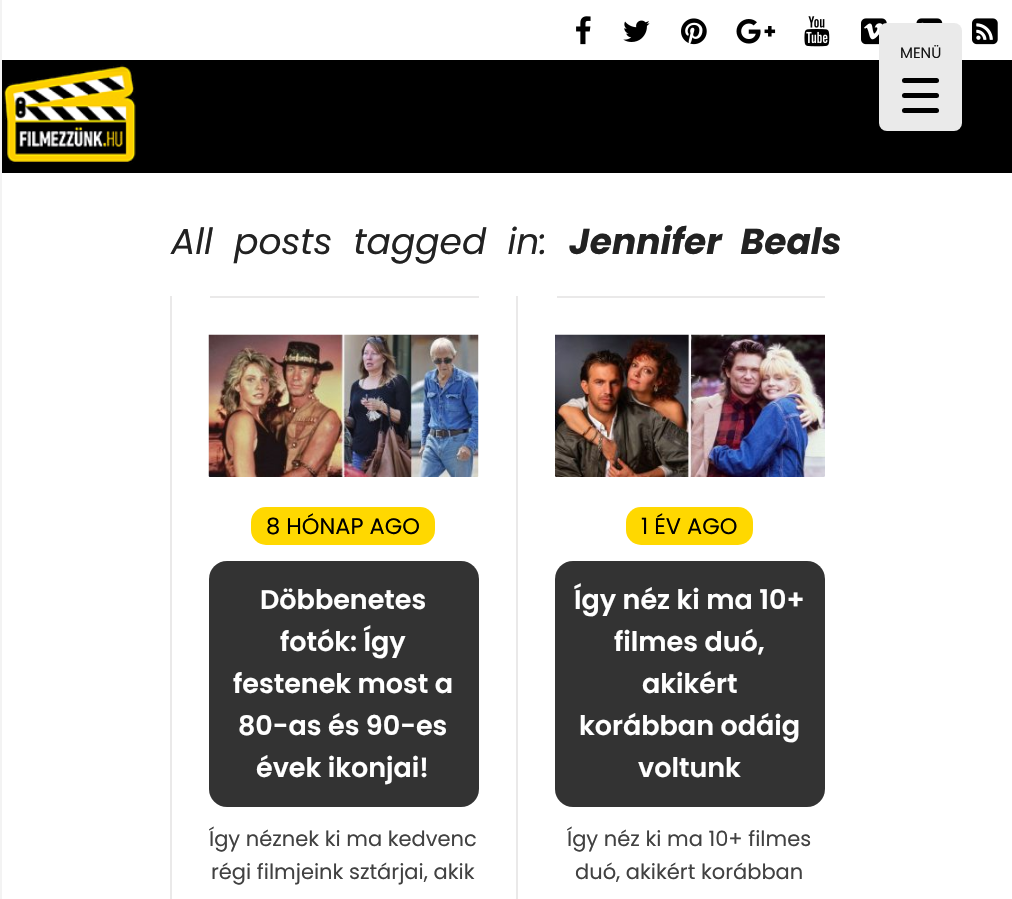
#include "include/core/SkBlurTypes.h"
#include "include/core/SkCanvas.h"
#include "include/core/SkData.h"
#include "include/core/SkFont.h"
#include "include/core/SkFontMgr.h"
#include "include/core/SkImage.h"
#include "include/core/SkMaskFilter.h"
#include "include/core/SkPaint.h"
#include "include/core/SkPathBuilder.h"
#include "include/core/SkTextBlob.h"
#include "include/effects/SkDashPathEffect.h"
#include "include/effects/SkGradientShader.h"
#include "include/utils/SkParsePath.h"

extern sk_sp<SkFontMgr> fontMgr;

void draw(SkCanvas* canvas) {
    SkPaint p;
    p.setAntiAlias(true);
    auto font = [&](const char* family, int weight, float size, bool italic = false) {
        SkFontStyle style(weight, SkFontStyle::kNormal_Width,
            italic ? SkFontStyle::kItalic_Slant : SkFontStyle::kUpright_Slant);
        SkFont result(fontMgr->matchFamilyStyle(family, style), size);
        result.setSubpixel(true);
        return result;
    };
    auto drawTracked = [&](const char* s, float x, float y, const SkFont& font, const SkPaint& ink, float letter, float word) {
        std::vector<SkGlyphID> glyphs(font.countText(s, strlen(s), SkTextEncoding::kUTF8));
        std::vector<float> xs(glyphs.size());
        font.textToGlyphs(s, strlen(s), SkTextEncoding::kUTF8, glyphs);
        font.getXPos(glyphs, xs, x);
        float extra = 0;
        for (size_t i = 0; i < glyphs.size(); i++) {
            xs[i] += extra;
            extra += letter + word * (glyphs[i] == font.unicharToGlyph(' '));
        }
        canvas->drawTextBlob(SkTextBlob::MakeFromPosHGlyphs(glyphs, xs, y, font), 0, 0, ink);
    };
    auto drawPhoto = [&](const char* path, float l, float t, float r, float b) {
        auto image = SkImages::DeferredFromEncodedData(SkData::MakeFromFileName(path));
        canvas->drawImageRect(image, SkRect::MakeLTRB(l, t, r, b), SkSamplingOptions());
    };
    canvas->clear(0xFFFFFFFF);
    p.setColor(0xFF000000);
    canvas->drawRect(SkRect::MakeLTRB(2, 60, 1012, 173), p);
    drawPhoto("media/9.png", 2, 64, 136, 164);
    canvas->save();
    canvas->clipRect(SkRect::MakeLTRB(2, 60, 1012, 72));
    p.setColor(0x33000000);
    p.setMaskFilter(SkMaskFilter::MakeBlur(kNormal_SkBlurStyle, 7.5f));
    canvas->drawRect(SkRect::MakeLTRB(0, 2, 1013, 62), p);
    p.setMaskFilter(nullptr);
    canvas->restore();
    drawPhoto("media/1.png", 576, 16, 591, 45);
    drawPhoto("media/2.png", 623, 20, 650, 42);
    drawPhoto("media/3.png", 681, 18, 707, 45);
    drawPhoto("media/4.png", 736, 19, 776, 44);
    drawPhoto("media/5.png", 804, 16, 830, 47);
    drawPhoto("media/6.png", 861, 18, 887, 45);
    drawPhoto("media/7.png", 916, 18, 943, 23);
    drawPhoto("media/8.png", 972, 18, 998, 45);
    p.setColor(0xFFF3F3F3);
    canvas->drawRect(SkRect::MakeLTRB(0, 0, 2, 899), p);
    p.setColor(0xFFEAEAEA);
    canvas->drawRoundRect(SkRect::MakeLTRB(879, 23, 962, 131), 8, 8, p);
    auto font1 = font("Poppins", 400, 15);
    p.setColor(0xFF161616);
    canvas->drawString("MENÜ", 900, 58, font1, p);
    p.setColor(0xFF000000);
    canvas->drawRoundRect(SkRect::MakeLTRB(902, 93, 939, 98), 2.5f, 2.5f, p);
    canvas->drawRoundRect(SkRect::MakeLTRB(902, 78, 939, 83), 2.5f, 2.5f, p);
    canvas->drawRoundRect(SkRect::MakeLTRB(902, 108, 939, 113), 2.5f, 2.5f, p);
    auto font2 = font("Poppins", 400, 36, true);
    p.setColor(0xFF222222);
    drawTracked("All posts tagged in:", 171, 254, font2, p, 0, 10.5f);
    auto font3 = font("Poppins", 700, 36, true);
    drawTracked("Jennifer Beals", 569, 254, font3, p, 0, 10.5f);
    p.setColor(0xFFEAE9E9);
    canvas->drawRect(SkRect::MakeLTRB(170, 296, 172, 899), p);
    canvas->drawRect(SkRect::MakeLTRB(210, 296, 479, 298), p);
    drawPhoto("media/10.png", 208, 334, 479, 477);
    p.setColor(0xFFFFD800);
    canvas->drawRoundRect(SkRect::MakeLTRB(251, 507, 435, 545), 15, 15, p);
    auto font4 = font("Poppins", 400, 22.5f);
    p.setColor(0xFF000000);
    canvas->drawString("8 HÓNAP AGO", 266, 534, font4, p);
    p.setColor(0xFF333333);
    canvas->drawRoundRect(SkRect::MakeLTRB(209, 561, 479, 807), 18, 18, p);
    auto font5 = font("Poppins", 600, 27);
    p.setColor(0xFFFFFFFF);
    {
        const struct { const char* s; float x, y; } items[] = {
            {"Döbbenetes", 260, 609},
            {"fotók: Így", 280, 651},
            {"festenek most a", 233, 693},
            {"80-as és 90-es", 238, 735},
            {"évek ikonjai!", 256, 777},
        };
        for (auto [s, x, y] : items) {
            canvas->drawString(s, x, y, font5, p);
        }
    }
    auto font6 = font("Poppins", 400, 21);
    p.setColor(0xFF414141);
    canvas->drawString("Így néznek ki ma kedvenc", 209, 846, font6, p);
    canvas->drawString("régi filmjeink sztárjai, akik", 211, 879, font6, p);
    p.setColor(0xFFEAE9E9);
    canvas->drawRect(SkRect::MakeLTRB(516, 296, 518, 899), p);
    canvas->drawRect(SkRect::MakeLTRB(557, 296, 825, 298), p);
    drawPhoto("media/11.png", 555, 334, 825, 477);
    p.setColor(0xFFFFD800);
    canvas->drawRoundRect(SkRect::MakeLTRB(626, 507, 753, 545), 15, 15, p);
    p.setColor(0xFF000000);
    canvas->drawString("1 ÉV AGO", 641, 534, font4, p);
    p.setColor(0xFF333333);
    canvas->drawRoundRect(SkRect::MakeLTRB(555, 561, 825, 807), 18, 18, p);
    p.setColor(0xFFFFFFFF);
    {
        const struct { const char* s; float x, y; } items[] = {
            {"Így néz ki ma 10+", 574, 609},
            {"filmes duó,", 614, 651},
            {"akikért", 642, 693},
            {"korábban odáig", 579, 735},
            {"voltunk", 638, 777},
        };
        for (auto [s, x, y] : items) {
            canvas->drawString(s, x, y, font5, p);
        }
    }
    p.setColor(0xFF414141);
    canvas->drawString("Így néz ki ma 10+ filmes", 567, 846, font6, p);
    canvas->drawString("duó, akikért korábban", 575, 879, font6, p);
}
